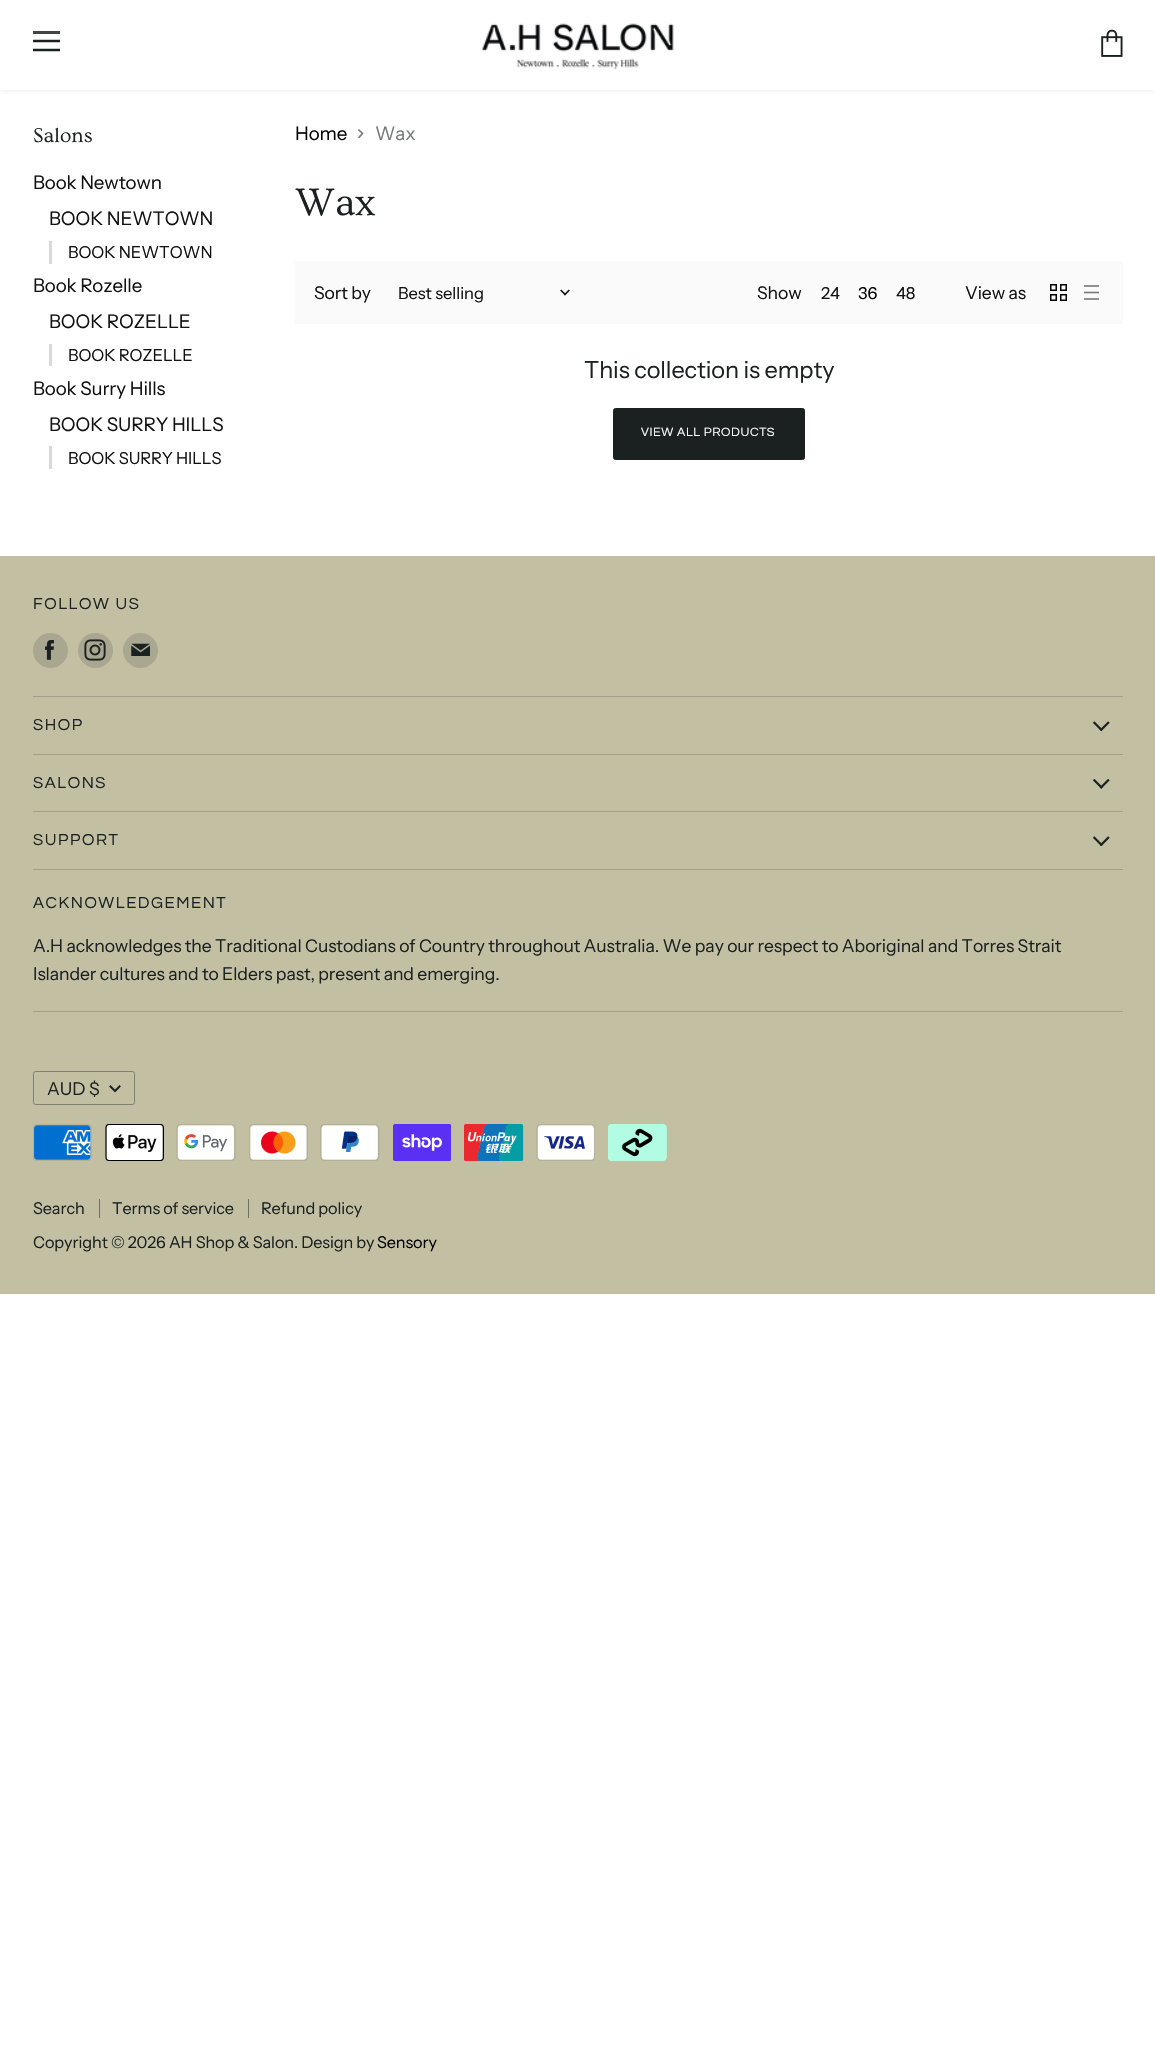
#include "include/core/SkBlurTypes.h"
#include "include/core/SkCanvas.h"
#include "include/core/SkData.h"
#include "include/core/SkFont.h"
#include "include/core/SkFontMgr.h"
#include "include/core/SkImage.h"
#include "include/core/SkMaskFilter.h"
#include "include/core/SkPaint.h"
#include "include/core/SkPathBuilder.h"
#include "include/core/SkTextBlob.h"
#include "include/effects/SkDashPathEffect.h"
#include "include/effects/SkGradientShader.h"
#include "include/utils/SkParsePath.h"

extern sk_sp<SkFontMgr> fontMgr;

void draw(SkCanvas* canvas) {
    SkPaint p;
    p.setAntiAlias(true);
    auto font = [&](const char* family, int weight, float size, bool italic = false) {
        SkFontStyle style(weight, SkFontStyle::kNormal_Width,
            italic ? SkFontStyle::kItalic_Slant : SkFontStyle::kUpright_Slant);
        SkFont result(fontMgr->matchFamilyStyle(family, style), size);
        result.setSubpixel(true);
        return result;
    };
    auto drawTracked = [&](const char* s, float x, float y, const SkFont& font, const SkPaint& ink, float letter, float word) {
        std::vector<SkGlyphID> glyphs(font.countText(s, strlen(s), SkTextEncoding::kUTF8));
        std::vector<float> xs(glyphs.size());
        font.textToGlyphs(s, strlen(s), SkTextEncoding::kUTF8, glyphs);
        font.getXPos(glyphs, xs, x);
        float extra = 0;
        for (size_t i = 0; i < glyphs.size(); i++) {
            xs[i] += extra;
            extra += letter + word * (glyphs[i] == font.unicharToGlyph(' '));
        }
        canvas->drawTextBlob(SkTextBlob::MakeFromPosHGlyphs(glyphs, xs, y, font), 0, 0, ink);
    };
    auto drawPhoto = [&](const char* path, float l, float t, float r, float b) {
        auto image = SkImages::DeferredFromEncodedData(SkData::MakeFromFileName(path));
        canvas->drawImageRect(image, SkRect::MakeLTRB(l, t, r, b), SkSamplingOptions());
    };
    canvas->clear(0xFFFFFFFF);
    canvas->save();
    canvas->clipRect(SkRect::MakeLTRB(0, 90, 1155, 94));
    p.setColor(0x40BAC0BE);
    p.setMaskFilter(SkMaskFilter::MakeBlur(kNormal_SkBlurStyle, 2.5f));
    canvas->drawRect(SkRect::MakeLTRB(0, 1, 1155, 91), p);
    p.setMaskFilter(nullptr);
    canvas->restore();
    p.setColor(0xFF414645);
    canvas->drawRect(SkRect::MakeLTRB(33, 31, 60, 34), p);
    canvas->save();
    canvas->clipRect(SkRect::MakeLTRB(33, 30, 60, 53));
    p.setStyle(SkPaint::kStroke_Style);
    p.setStrokeWidth(2.5f);
    p.setStrokeCap(SkPaint::kSquare_Cap);
    p.setStrokeJoin(SkPaint::kRound_Join);
    p.setColor(0xFF1B2120);
    canvas->drawPath(SkPathBuilder().moveTo(59, 41).lineTo(34, 41).moveTo(59, 50).lineTo(34, 50).detach(), p);
    canvas->restore();
    drawPhoto("media/1.png", 481, 23, 674, 69);
    drawPhoto("media/2.png", 1101, 29, 1123, 57);
    auto font1 = font("Ovo", 400, 21);
    p.setStyle(SkPaint::kFill_Style);
    canvas->drawString("Salons", 33, 142, font1, p);
    auto font2 = font("Instrument Sans", 400, 18.75f);
    p.setColor(0xFF111111);
    drawTracked("Book Newtown", 33, 189, font2, p, -0.09f, 0);
    drawTracked("BOOK NEWTOWN", 49, 225, font2, p, -0.09f, 0);
    p.setColor(0xFFD9D9D9);
    canvas->drawRect(SkRect::MakeLTRB(49, 241, 52, 264), p);
    auto font3 = font("Instrument Sans", 400, 16.5f);
    p.setColor(0xFF111111);
    drawTracked("BOOK NEWTOWN", 68, 258, font3, p, -0.09f, 0);
    drawTracked("Book Rozelle", 33, 292, font2, p, -0.09f, 0);
    drawTracked("BOOK ROZELLE", 49, 328, font2, p, -0.09f, 0);
    p.setColor(0xFFD9D9D9);
    canvas->drawRect(SkRect::MakeLTRB(49, 344, 52, 366), p);
    p.setColor(0xFF111111);
    drawTracked("BOOK ROZELLE", 68, 361, font3, p, -0.09f, 0);
    drawTracked("Book Surry Hills", 33, 395, font2, p, -0.09f, 0);
    drawTracked("BOOK SURRY HILLS", 49, 431, font2, p, -0.09f, 0);
    p.setColor(0xFFD9D9D9);
    canvas->drawRect(SkRect::MakeLTRB(49, 446, 52, 469), p);
    p.setColor(0xFF111111);
    drawTracked("BOOK SURRY HILLS", 68, 464, font3, p, -0.09f, 0);
    p.setColor(0xFF000000);
    drawTracked("Home", 295, 140, font2, p, -0.09f, 0);
    canvas->save();
    canvas->clipPath(SkPathBuilder().moveTo(358, 138.5f).lineTo(358, 128.5f).lineTo(364.5f, 128.5f).lineTo(364.5f, 138.5f).close().detach(), true);
    p.setStyle(SkPaint::kStroke_Style);
    p.setStrokeWidth(1.6f);
    p.setStrokeCap(SkPaint::kButt_Cap);
    p.setStrokeJoin(SkPaint::kMiter_Join);
    p.setColor(0xFF757977);
    canvas->drawPath(SkPathBuilder().moveTo(358.5f, 138).lineTo(362.5f, 133.5f).lineTo(358.5f, 129.5f).detach(), p);
    canvas->restore();
    p.setStyle(SkPaint::kFill_Style);
    drawTracked("Wax", 375, 140, font2, p, -0.09f, 0);
    auto font4 = font("Ovo", 400, 40);
    p.setColor(0xFF1B2120);
    canvas->drawString("Wax", 295, 215, font4, p);
    p.setColor(0xFFFAFAFA);
    canvas->drawRoundRect(SkRect::MakeLTRB(295, 261, 1123, 324), 1, 1, p);
    auto font5 = font("Instrument Sans", 400, 17.58f);
    p.setColor(0xFF111111);
    drawTracked("Sort by", 314, 299, font5, p, -0.09f, 0);
    canvas->drawString("Best selling", 398, 299, font3, p);
    drawPhoto("media/3.png", 560, 289, 570, 296);
    drawTracked("Show", 757, 299, font5, p, -0.09f, 0);
    drawTracked("24", 821, 299, font3, p, -0.09f, 0);
    p.setColor(0xFF000000);
    drawTracked("36", 858, 299, font3, p, -0.09f, 0);
    p.setColor(0xFF111111);
    drawTracked("48", 896, 299, font3, p, -0.09f, 0);
    drawTracked("View as", 965, 299, font5, p, -0.09f, 0);
    drawPhoto("media/4.png", 1050, 284, 1067, 301);
    p.setColor(0xFF919191);
    canvas->drawRect(SkRect::MakeLTRB(1084, 285, 1099, 287), p);
    p.setStyle(SkPaint::kStroke_Style);
    p.setStrokeJoin(SkPaint::kRound_Join);
    p.setColor(0xFF777777);
    canvas->drawPath(SkPathBuilder().moveTo(1084, 292.5f).lineTo(1099, 292.5f).detach(), p);
    p.setStyle(SkPaint::kFill_Style);
    p.setColor(0xFF919191);
    canvas->drawRect(SkRect::MakeLTRB(1084, 298, 1099, 300), p);
    auto font6 = font("Instrument Sans", 400, 23.5f);
    p.setColor(0xFF1B2120);
    drawTracked("This collection is empty", 584, 378, font6, p, -0.1f, 0);
    canvas->drawRoundRect(SkRect::MakeLTRB(613.5f, 408.5f, 804.5f, 459.5f), 2, 2, p);
    p.setStyle(SkPaint::kStroke_Style);
    p.setStrokeWidth(1);
    p.setStrokeJoin(SkPaint::kMiter_Join);
    canvas->drawRoundRect(SkRect::MakeLTRB(613.5f, 408.5f, 804.5f, 459.5f), 2, 2, p);
    auto font7 = font("Questrial", 400, 12.5f);
    p.setStyle(SkPaint::kFill_Style);
    p.setColor(0xFFFFFFFF);
    drawTracked("VIEW ALL PRODUCTS", 641, 436, font7, p, 0.6f, 0);
    p.setColor(0xFFC2BFA3);
    canvas->drawRect(SkRect::MakeLTRB(0, 556, 1155, 1294), p);
    p.setColor(0xFFA19F89);
    canvas->drawRect(SkRect::MakeLTRB(33, 696, 1123, 697), p);
    auto font8 = font("Questrial", 400, 16.5f);
    p.setColor(0xFF1B2120);
    drawTracked("FOLLOW US", 33, 609, font8, p, 1.6f, 0);
    p.setColor(0xFFA9A78F);
    canvas->drawCircle(50.5f, 650.5f, 17.5f, p);
    drawPhoto("media/5.png", 45, 640, 54, 660);
    canvas->drawCircle(95.5f, 650.5f, 17.5f, p);
    drawPhoto("media/6.png", 84, 639, 106, 661);
    canvas->drawCircle(140.5f, 650.5f, 17.5f, p);
    drawPhoto("media/7.png", 131, 643, 150, 656);
    p.setColor(0xFFA19F89);
    canvas->drawRect(SkRect::MakeLTRB(33, 754, 1123, 755), p);
    p.setColor(0xFF1B2120);
    drawTracked("SHOP", 33, 730, font8, p, 1.6f, 0);
    drawPhoto("media/8.png", 1093, 721, 1110, 731);
    p.setColor(0xFFA19F89);
    canvas->drawRect(SkRect::MakeLTRB(33, 811, 1123, 812), p);
    p.setColor(0xFF1B2120);
    drawTracked("SALONS", 33, 788, font8, p, 1.6f, 0);
    drawPhoto("media/9.png", 1093, 779, 1110, 789);
    p.setColor(0xFFA19F89);
    canvas->drawRect(SkRect::MakeLTRB(33, 869, 1123, 870), p);
    p.setColor(0xFF1B2120);
    drawTracked("SUPPORT", 33, 845, font8, p, 1.6f, 0);
    drawPhoto("media/8.png", 1093, 836, 1110, 846);
    p.setColor(0xFFA19F89);
    canvas->drawRect(SkRect::MakeLTRB(33, 1011, 1123, 1012), p);
    p.setColor(0xFF1B2120);
    drawTracked("ACKNOWLEDGEMENT", 33, 908, font8, p, 1.6f, 0);
    drawTracked("A.H acknowledges the Traditional Custodians of Country throughout Australia. We pay our respect to Aboriginal and Torres Strait", 33, 952, font5, p, -0.09f, 0);
    drawTracked("Islander cultures and to Elders past, present and emerging.", 33, 980, font5, p, -0.09f, 0);
    p.setStyle(SkPaint::kStroke_Style);
    p.setColor(0xFF7F806F);
    canvas->drawRoundRect(SkRect::MakeLTRB(33.5f, 1071.5f, 134.5f, 1104.5f), 2, 2, p);
    p.setStyle(SkPaint::kFill_Style);
    p.setColor(0xFF1B2120);
    canvas->drawString("AUD $", 47, 1095, font5, p);
    p.setStyle(SkPaint::kStroke_Style);
    p.setStrokeWidth(2);
    p.setStrokeCap(SkPaint::kSquare_Cap);
    canvas->drawPath(SkPathBuilder().moveTo(115, 1091).lineTo(119.5f, 1086.5f).moveTo(115, 1091).lineTo(110.5f, 1086.5f).detach(), p);
    drawPhoto("media/10.png", 33, 1124, 92, 1161);
    drawPhoto("media/11.png", 105, 1124, 164, 1161);
    drawPhoto("media/12.png", 176, 1124, 236, 1161);
    drawPhoto("media/13.png", 249, 1124, 308, 1161);
    drawPhoto("media/14.png", 320, 1124, 380, 1161);
    drawPhoto("media/15.png", 393, 1124, 451, 1161);
    drawPhoto("media/16.png", 464, 1124, 524, 1161);
    drawPhoto("media/17.png", 536, 1124, 595, 1161);
    drawPhoto("media/18.png", 608, 1124, 667, 1161);
    p.setStyle(SkPaint::kFill_Style);
    p.setColor(0xFF6F7062);
    canvas->drawRect(SkRect::MakeLTRB(99, 1199, 100, 1218), p);
    auto font9 = font("Instrument Sans", 400, 16.25f);
    p.setColor(0xFF1B2120);
    drawTracked("Search", 33, 1214, font9, p, -0.09f, 0);
    p.setColor(0xFF6F7062);
    canvas->drawRect(SkRect::MakeLTRB(248, 1199, 249, 1218), p);
    p.setColor(0xFF1B2120);
    {
        const struct { const char* s; float x, y; } items[] = {
            {"Terms of service", 112, 1214},
            {"Refund policy", 261, 1214},
            {"Copyright © 2026 AH Shop & Salon. Design by", 33, 1248},
        };
        for (auto [s, x, y] : items) {
            drawTracked(s, x, y, font9, p, -0.09f, 0);
        }
    }
    p.setColor(0xFF000000);
    drawTracked("Sensory", 377, 1248, font9, p, -0.09f, 0);
}
